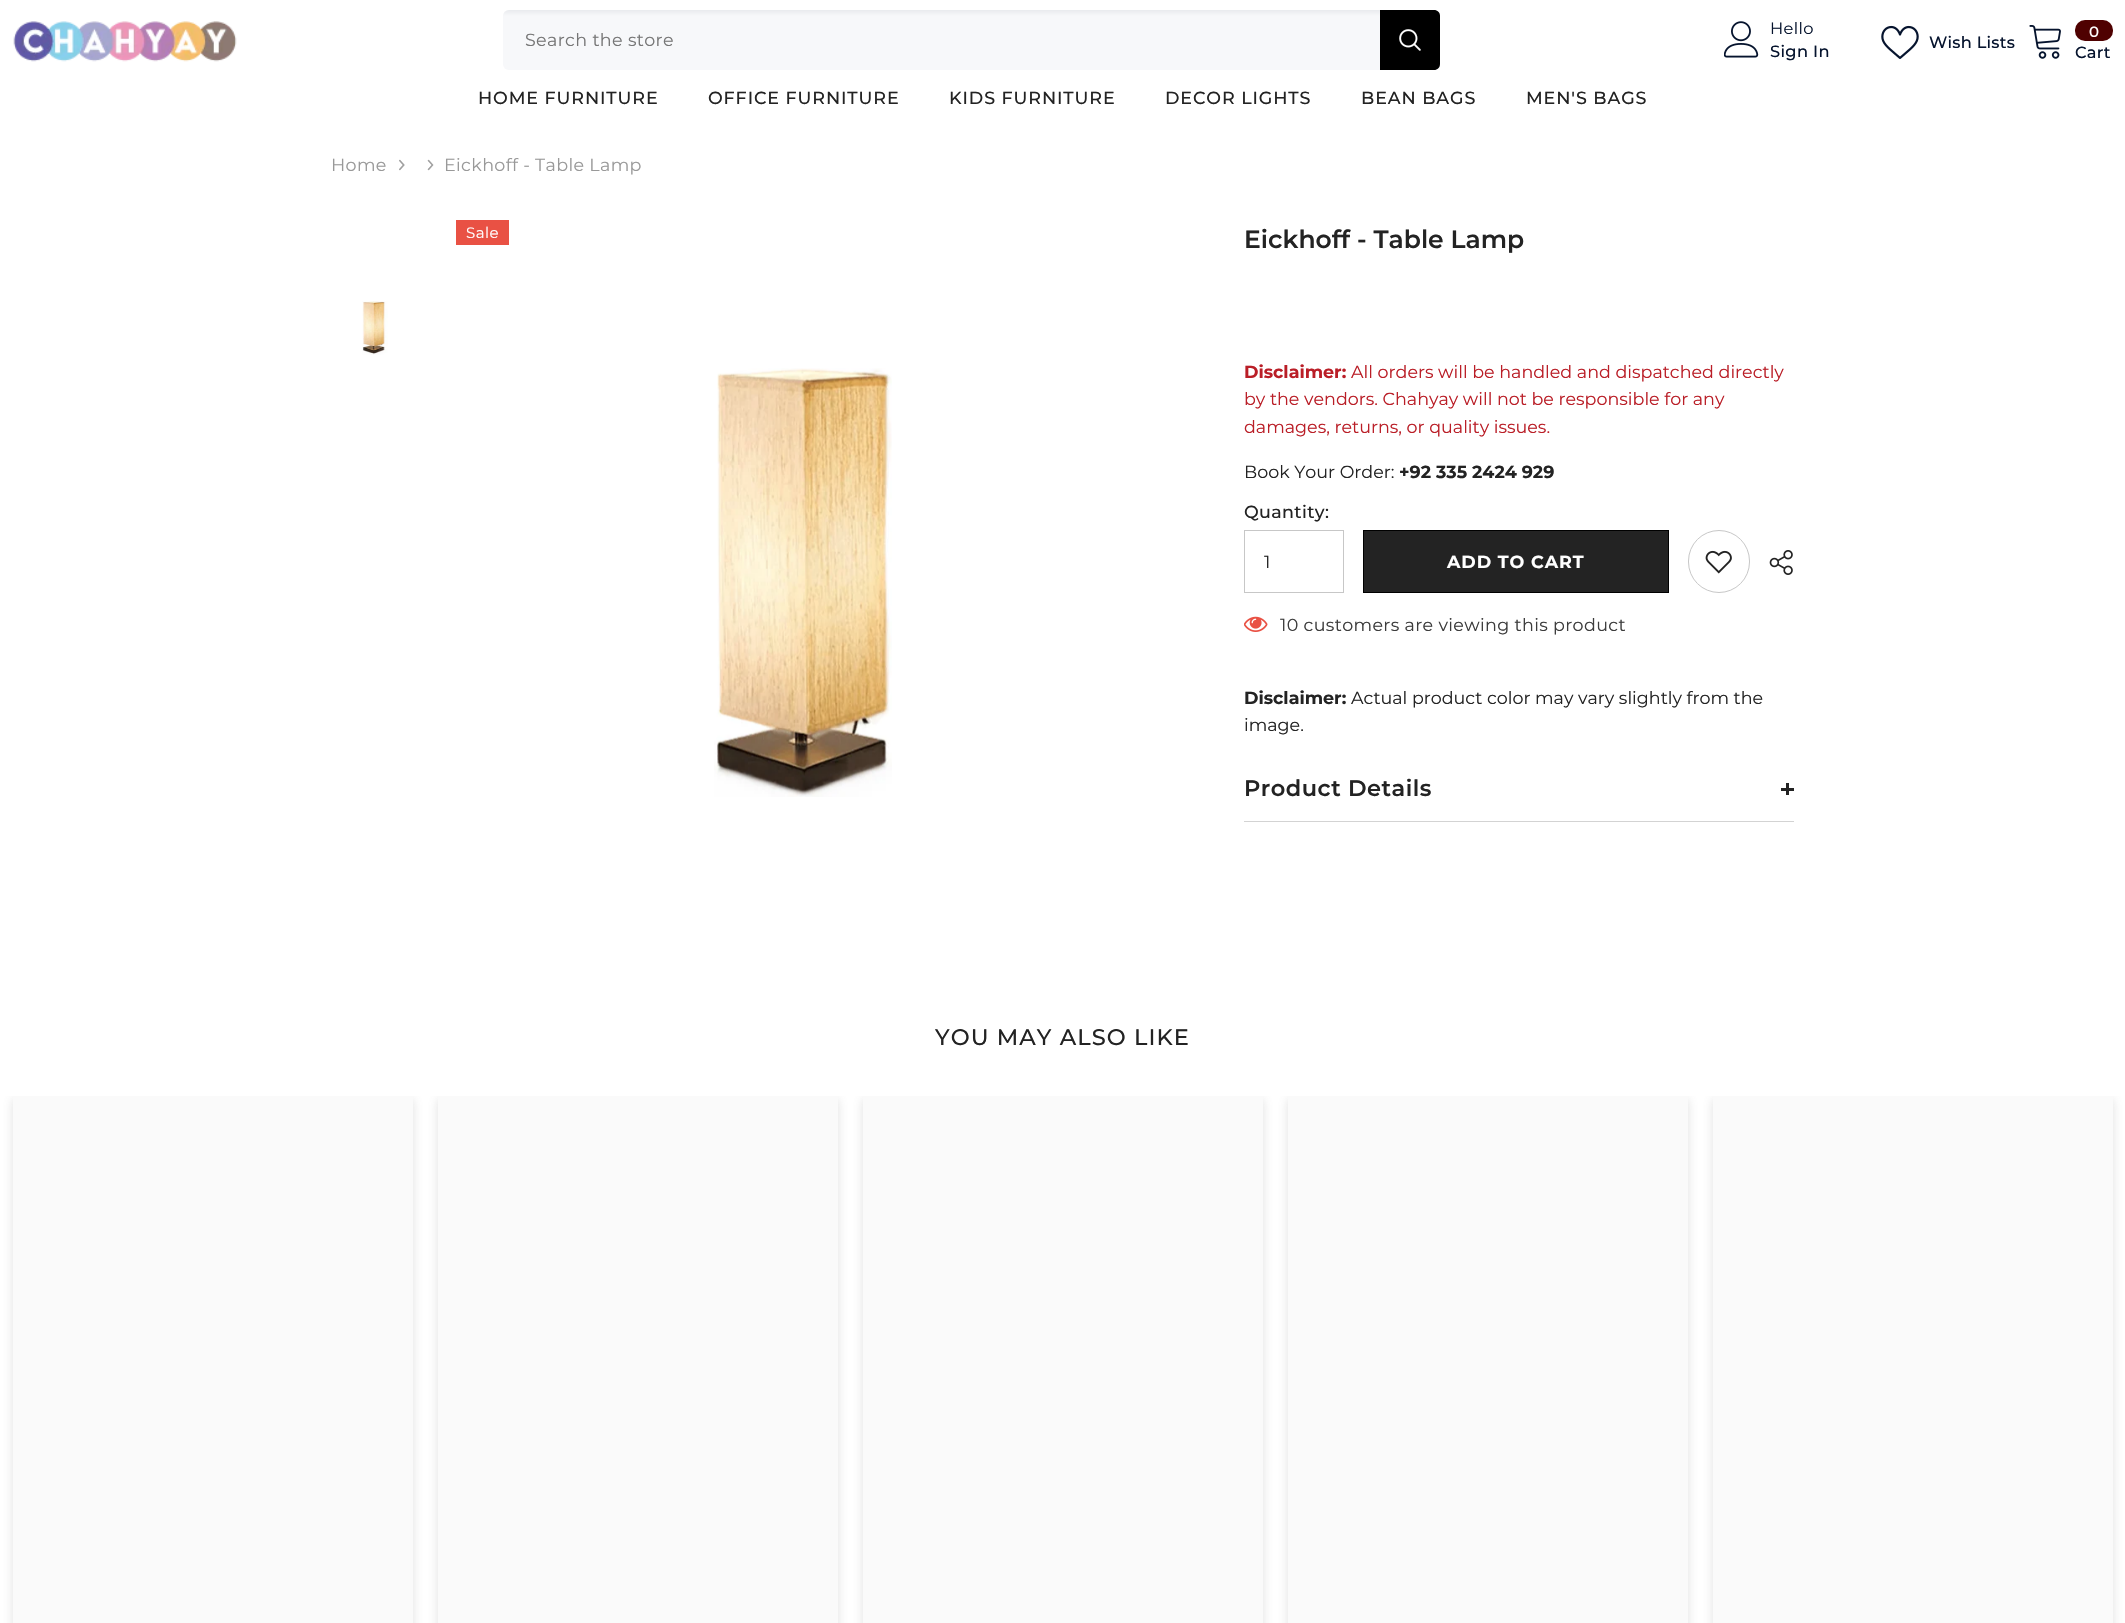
#include "include/core/SkBlurTypes.h"
#include "include/core/SkCanvas.h"
#include "include/core/SkData.h"
#include "include/core/SkFont.h"
#include "include/core/SkFontMgr.h"
#include "include/core/SkImage.h"
#include "include/core/SkMaskFilter.h"
#include "include/core/SkPaint.h"
#include "include/core/SkPathBuilder.h"
#include "include/core/SkTextBlob.h"
#include "include/effects/SkDashPathEffect.h"
#include "include/effects/SkGradientShader.h"
#include "include/utils/SkParsePath.h"

extern sk_sp<SkFontMgr> fontMgr;

void draw(SkCanvas* canvas) {
    SkPaint p;
    p.setAntiAlias(true);
    auto font = [&](const char* family, int weight, float size, bool italic = false) {
        SkFontStyle style(weight, SkFontStyle::kNormal_Width,
            italic ? SkFontStyle::kItalic_Slant : SkFontStyle::kUpright_Slant);
        SkFont result(fontMgr->matchFamilyStyle(family, style), size);
        result.setSubpixel(true);
        return result;
    };
    auto drawTracked = [&](const char* s, float x, float y, const SkFont& font, const SkPaint& ink, float letter, float word) {
        std::vector<SkGlyphID> glyphs(font.countText(s, strlen(s), SkTextEncoding::kUTF8));
        std::vector<float> xs(glyphs.size());
        font.textToGlyphs(s, strlen(s), SkTextEncoding::kUTF8, glyphs);
        font.getXPos(glyphs, xs, x);
        float extra = 0;
        for (size_t i = 0; i < glyphs.size(); i++) {
            xs[i] += extra;
            extra += letter + word * (glyphs[i] == font.unicharToGlyph(' '));
        }
        canvas->drawTextBlob(SkTextBlob::MakeFromPosHGlyphs(glyphs, xs, y, font), 0, 0, ink);
    };
    auto drawPhoto = [&](const char* path, float l, float t, float r, float b) {
        auto image = SkImages::DeferredFromEncodedData(SkData::MakeFromFileName(path));
        canvas->drawImageRect(image, SkRect::MakeLTRB(l, t, r, b), SkSamplingOptions());
    };
    canvas->clear(0xFFFFFFFF);
    drawPhoto("media/1.png", 13, 21, 237, 62);
    {
        const SkColor colors[] = {0xFFE9EBEE, 0xFFF7F8FA, 0xFFF7F8FA};
        const float stops[] = {0, 0.1f, 1};
        const SkPoint ends[] = {{971, 10}, {971, 70}};
        p.setShader(SkGradientShader::MakeLinear(ends, colors, stops, 3, SkTileMode::kClamp));
        p.setAlpha(255);
    }
    canvas->drawRoundRect(SkRect::MakeLTRB(503, 10, 1440, 70), 6, 6, p);
    auto font1 = font("Montserrat", 400, 17.5f);
    p.setShader(nullptr);
    p.setColor(0xFF767676);
    drawTracked("Search the store", 525, 46, font1, p, 0.35f, 0);
    p.setColor(0xFF000000);
    canvas->drawPath(SkPathBuilder().moveTo(1380, 10).lineTo(1434, 10).cubicTo(1437.5f, 10, 1440, 12.5f, 1440, 16).lineTo(1440, 64).cubicTo(1440, 67.5f, 1437.5f, 70, 1434, 70).lineTo(1380, 70).close().detach(), p);
    drawPhoto("media/2.png", 1399, 29, 1421, 51);
    drawPhoto("media/3.png", 1724, 21, 1759, 58);
    auto font2 = font("Montserrat", 400, 16.25f);
    p.setColor(0xFF06142E);
    drawTracked("Hello", 1770, 34, font2, p, 0.35f, 0);
    auto font3 = font("Montserrat", 500, 16.25f);
    drawTracked("Sign In", 1770, 57, font3, p, 0.35f, 0);
    drawPhoto("media/4.png", 1881, 25, 1919, 59);
    drawTracked("Wish Lists", 1929, 48, font3, p, 0.25f, 0);
    drawPhoto("media/5.png", 2029, 25, 2061, 59);
    p.setColor(0xFF4F0101);
    canvas->drawRoundRect(SkRect::MakeLTRB(2075, 20, 2113, 41), 10, 10, p);
    auto font4 = font("Montserrat", 500, 15);
    p.setColor(0xFFFFFFFF);
    canvas->drawString("0", 2089, 37, font4, p);
    p.setColor(0xFF06142E);
    drawTracked("Cart", 2075, 58, font3, p, 0.25f, 0);
    auto font5 = font("Montserrat", 500, 17.5f);
    p.setColor(0xFF232323);
    {
        const struct { const char* s; float x, y; } items[] = {
            {"HOME FURNITURE", 478, 104},
            {"OFFICE FURNITURE", 708, 104},
            {"KIDS FURNITURE", 949, 104},
            {"DECOR LIGHTS", 1165, 104},
            {"BEAN BAGS", 1361, 104},
            {"MEN'S BAGS", 1526, 104},
        };
        for (auto [s, x, y] : items) {
            drawTracked(s, x, y, font5, p, 0.9f, 0);
        }
    }
    p.setColor(0xFF999999);
    drawTracked("Home", 331, 171, font1, p, 0.35f, 0);
    drawPhoto("media/6.png", 399, 159, 405, 171);
    drawPhoto("media/7.png", 427, 159, 434, 171);
    drawTracked("Eickhoff - Table Lamp", 444, 171, font1, p, 0.35f, 0);
    p.setColor(0xFFE95144);
    canvas->drawRect(SkRect::MakeLTRB(456, 220, 509, 245), p);
    auto font6 = font("Montserrat", 400, 15);
    p.setColor(0xFFFFFFFF);
    drawTracked("Sale", 466, 238, font6, p, 0.5f, 0);
    drawPhoto("media/8.png", 714, 368, 892, 797);
    drawPhoto("media/9.png", 362, 301, 388, 355);
    auto font7 = font("Montserrat", 600, 25);
    p.setColor(0xFF232323);
    canvas->drawString("Eickhoff - Table Lamp", 1244, 248, font7, p);
    auto font8 = font("Montserrat", 700, 17.5f);
    p.setColor(0xFFBA1E27);
    canvas->drawString("Disclaimer:", 1244, 378, font8, p);
    {
        const struct { const char* s; float x, y; } items[] = {
            {"All orders will be handled and dispatched directly", 1351, 378},
            {"by the vendors. Chahyay will not be responsible for any", 1244, 405},
            {"damages, returns, or quality issues.", 1244, 433},
        };
        for (auto [s, x, y] : items) {
            canvas->drawString(s, x, y, font1, p);
        }
    }
    p.setColor(0xFF232323);
    canvas->drawString("Book Your Order:", 1244, 478, font1, p);
    canvas->drawString("+92 335 2424 929", 1399, 478, font8, p);
    drawTracked("Quantity:", 1244, 518, font5, p, 0.35f, 0);
    p.setStyle(SkPaint::kStroke_Style);
    p.setStrokeWidth(1);
    p.setColor(0xFFC7C7C7);
    canvas->drawRect(SkRect::MakeLTRB(1244.5f, 530.5f, 1343.5f, 592.5f), p);
    p.setStyle(SkPaint::kFill_Style);
    p.setColor(0xFF232323);
    drawTracked("1", 1264, 568, font1, p, 0.35f, 0);
    canvas->drawRect(SkRect::MakeLTRB(1363.5f, 530.5f, 1668.5f, 592.5f), p);
    p.setStyle(SkPaint::kStroke_Style);
    p.setColor(0xFF000000);
    canvas->drawRect(SkRect::MakeLTRB(1363.5f, 530.5f, 1668.5f, 592.5f), p);
    p.setStyle(SkPaint::kFill_Style);
    p.setColor(0xFFFFFFFF);
    drawTracked("ADD TO CART", 1447, 568, font8, p, 0.9f, 0);
    p.setStyle(SkPaint::kStroke_Style);
    p.setColor(0xFFC7C7C7);
    canvas->drawRoundRect(SkRect::MakeLTRB(1688.5f, 530.5f, 1749.5f, 592.5f), 30.5f, 30.5f, p);
    drawPhoto("media/10.png", 1705, 550, 1732, 574);
    drawPhoto("media/11.png", 1769, 550, 1793, 575);
    drawPhoto("media/12.png", 1244, 616, 1268, 632);
    p.setStyle(SkPaint::kFill_Style);
    p.setColor(0xFF3C3C3C);
    drawTracked("10 customers are viewing this product", 1280, 631, font1, p, 0.35f, 0);
    p.setColor(0xFF232323);
    canvas->drawString("Disclaimer:", 1244, 704, font8, p);
    canvas->drawString("Actual product color may vary slightly from the", 1351, 704, font1, p);
    canvas->drawString("image.", 1244, 731, font1, p);
    p.setColor(0xFFD3D3D3);
    canvas->drawRect(SkRect::MakeLTRB(1244, 821, 1794, 822), p);
    auto font9 = font("Montserrat", 600, 22.5f);
    p.setColor(0xFF232323);
    drawTracked("Product Details", 1244, 796, font9, p, 0.5f, 0);
    canvas->drawRect(SkRect::MakeLTRB(1786, 783, 1789, 795), p);
    canvas->drawRect(SkRect::MakeLTRB(1781, 788, 1794, 791), p);
    auto font10 = font("Montserrat", 500, 22.5f);
    drawTracked("YOU MAY ALSO LIKE", 935, 1045, font10, p, 1.1f, 0);
    canvas->save();
    canvas->clipRect(SkRect::MakeLTRB(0, 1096, 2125, 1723));
    p.setColor(0x33646464);
    p.setMaskFilter(SkMaskFilter::MakeBlur(kNormal_SkBlurStyle, 5));
    canvas->drawRect(SkRect::MakeLTRB(13, 1099, 413, 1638), p);
    p.setMaskFilter(nullptr);
    canvas->restore();
    p.setColor(0xFFFAFAFA);
    canvas->drawRect(SkRect::MakeLTRB(13, 1096, 413, 1623), p);
    canvas->save();
    canvas->clipRect(SkRect::MakeLTRB(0, 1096, 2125, 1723));
    p.setColor(0x33646464);
    p.setMaskFilter(SkMaskFilter::MakeBlur(kNormal_SkBlurStyle, 5));
    canvas->drawRect(SkRect::MakeLTRB(438, 1099, 838, 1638), p);
    p.setMaskFilter(nullptr);
    canvas->restore();
    p.setColor(0xFFFAFAFA);
    canvas->drawRect(SkRect::MakeLTRB(438, 1096, 838, 1623), p);
    canvas->save();
    canvas->clipRect(SkRect::MakeLTRB(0, 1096, 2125, 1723));
    p.setColor(0x33646464);
    p.setMaskFilter(SkMaskFilter::MakeBlur(kNormal_SkBlurStyle, 5));
    canvas->drawRect(SkRect::MakeLTRB(863, 1099, 1263, 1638), p);
    p.setMaskFilter(nullptr);
    canvas->restore();
    p.setColor(0xFFFAFAFA);
    canvas->drawRect(SkRect::MakeLTRB(863, 1096, 1263, 1623), p);
    canvas->save();
    canvas->clipRect(SkRect::MakeLTRB(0, 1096, 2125, 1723));
    p.setColor(0x33646464);
    p.setMaskFilter(SkMaskFilter::MakeBlur(kNormal_SkBlurStyle, 5));
    canvas->drawRect(SkRect::MakeLTRB(1288, 1099, 1688, 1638), p);
    p.setMaskFilter(nullptr);
    canvas->restore();
    p.setColor(0xFFFAFAFA);
    canvas->drawRect(SkRect::MakeLTRB(1288, 1096, 1688, 1623), p);
    canvas->save();
    canvas->clipRect(SkRect::MakeLTRB(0, 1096, 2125, 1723));
    p.setColor(0x33646464);
    p.setMaskFilter(SkMaskFilter::MakeBlur(kNormal_SkBlurStyle, 5));
    canvas->drawRect(SkRect::MakeLTRB(1713, 1099, 2113, 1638), p);
    p.setMaskFilter(nullptr);
    canvas->restore();
    p.setColor(0xFFFAFAFA);
    canvas->drawRect(SkRect::MakeLTRB(1713, 1096, 2113, 1623), p);
}
